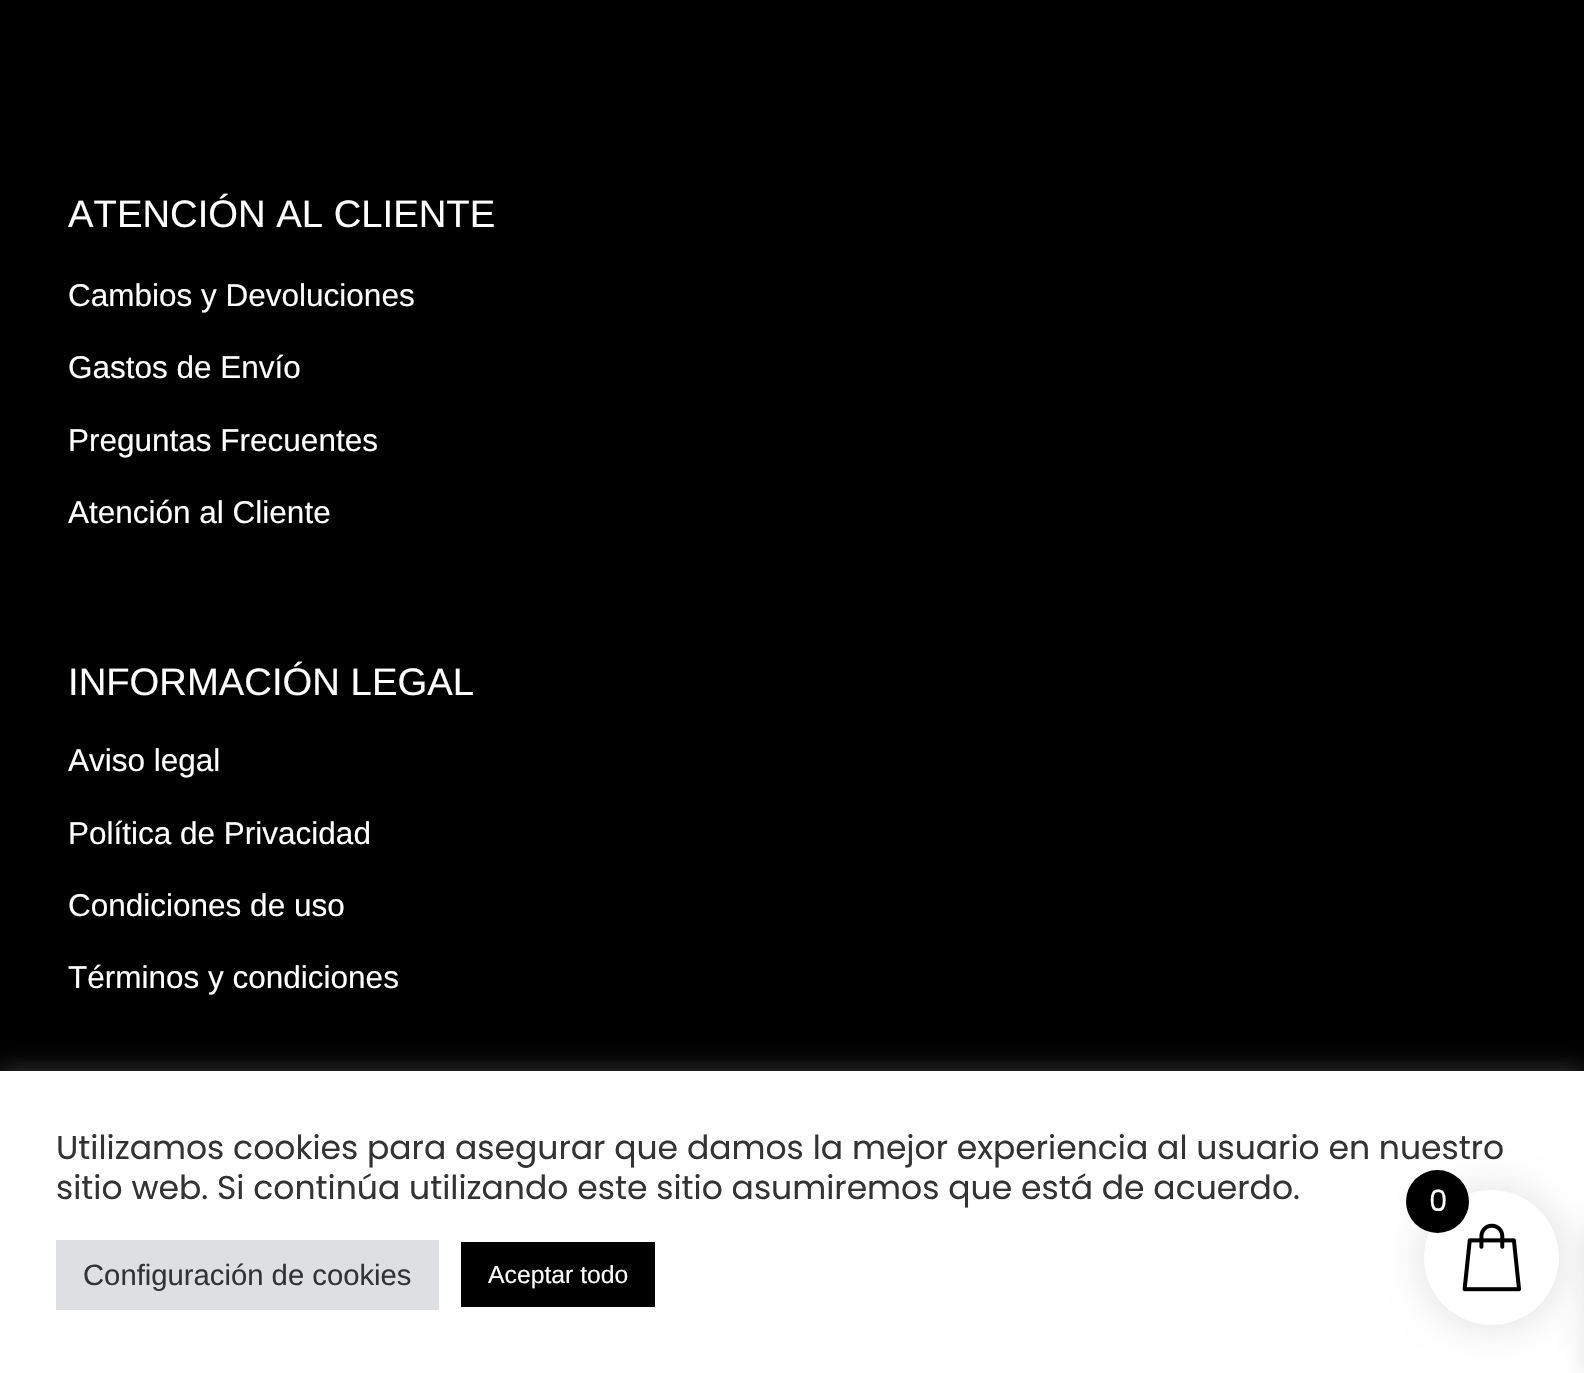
#include "include/core/SkBlurTypes.h"
#include "include/core/SkCanvas.h"
#include "include/core/SkData.h"
#include "include/core/SkFont.h"
#include "include/core/SkFontMgr.h"
#include "include/core/SkImage.h"
#include "include/core/SkMaskFilter.h"
#include "include/core/SkPaint.h"
#include "include/core/SkPathBuilder.h"
#include "include/core/SkTextBlob.h"
#include "include/effects/SkDashPathEffect.h"
#include "include/effects/SkGradientShader.h"
#include "include/utils/SkParsePath.h"

extern sk_sp<SkFontMgr> fontMgr;

void draw(SkCanvas* canvas) {
    SkPaint p;
    p.setAntiAlias(true);
    auto font = [&](const char* family, int weight, float size, bool italic = false) {
        SkFontStyle style(weight, SkFontStyle::kNormal_Width,
            italic ? SkFontStyle::kItalic_Slant : SkFontStyle::kUpright_Slant);
        SkFont result(fontMgr->matchFamilyStyle(family, style), size);
        result.setSubpixel(true);
        return result;
    };
    auto drawPhoto = [&](const char* path, float l, float t, float r, float b) {
        auto image = SkImages::DeferredFromEncodedData(SkData::MakeFromFileName(path));
        canvas->drawImageRect(image, SkRect::MakeLTRB(l, t, r, b), SkSamplingOptions());
    };
    canvas->clear(0xFF000000);
    auto font1 = font("Liberation Sans", 400, 38.25f);
    p.setColor(0xFFFFFFFF);
    canvas->drawString("ATENCIÓN AL CLIENTE", 68, 227, font1, p);
    auto font2 = font("Liberation Sans", 400, 31.5f);
    {
        const struct { const char* s; float x, y; } items[] = {
            {"Cambios y Devoluciones", 68, 306},
            {"Gastos de Envío", 68, 378},
            {"Preguntas Frecuentes", 68, 451},
            {"Atención al Cliente", 68, 523},
        };
        for (auto [s, x, y] : items) {
            canvas->drawString(s, x, y, font2, p);
        }
    }
    canvas->drawString("INFORMACIÓN LEGAL", 68, 695, font1, p);
    {
        const struct { const char* s; float x, y; } items[] = {
            {"Aviso legal", 68, 771},
            {"Política de Privacidad", 68, 844},
            {"Condiciones de uso", 68, 916},
            {"Términos y condiciones", 68, 988},
        };
        for (auto [s, x, y] : items) {
            canvas->drawString(s, x, y, font2, p);
        }
    }
    p.setColor(0x4DACABAB);
    p.setMaskFilter(SkMaskFilter::MakeBlur(kNormal_SkBlurStyle, 11));
    canvas->drawRect(SkRect::MakeLTRB(0, 1069, 1584, 1373), p);
    p.setMaskFilter(nullptr);
    p.setColor(0xFFFFFFFF);
    canvas->drawRect(SkRect::MakeLTRB(0, 1071, 1584, 1373), p);
    auto font3 = font("Poppins", 400, 33);
    p.setColor(0xFF333333);
    canvas->drawString("Utilizamos cookies para asegurar que damos la mejor experiencia al usuario en nuestro", 56, 1159, font3, p);
    canvas->drawString("sitio web. Si continúa utilizando este sitio asumiremos que está de acuerdo.", 56, 1199, font3, p);
    p.setColor(0xFFDEDFE0);
    canvas->drawRect(SkRect::MakeLTRB(56, 1240, 439, 1310), p);
    auto font4 = font("Liberation Sans", 400, 29.25f);
    p.setColor(0xFF333333);
    canvas->drawString("Configuración de cookies", 83, 1285, font4, p);
    p.setColor(0xFF000000);
    canvas->drawRect(SkRect::MakeLTRB(461, 1242, 655, 1307), p);
    auto font5 = font("Liberation Sans", 400, 24.75f);
    p.setColor(0xFFFFFFFF);
    canvas->drawString("Aceptar todo", 488, 1283, font5, p);
    p.setColor(0x1A000000);
    p.setMaskFilter(SkMaskFilter::MakeBlur(kNormal_SkBlurStyle, 17));
    canvas->drawRoundRect(SkRect::MakeLTRB(1420, 1186, 1564, 1330), 72, 72, p);
    p.setMaskFilter(nullptr);
    p.setMaskFilter(SkMaskFilter::MakeBlur(kNormal_SkBlurStyle, 11));
    canvas->drawRect(SkRect::MakeLTRB(1584, 1229, 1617, 1373), p);
    p.setMaskFilter(nullptr);
    p.setColor(0xFFFFFFFF);
    canvas->drawCircle(1491.5f, 1257.5f, 67.5f, p);
    drawPhoto("media/1.png", 1462, 1223, 1521, 1292);
    p.setColor(0xFF000000);
    canvas->drawCircle(1437.5f, 1201.5f, 31.5f, p);
    auto font6 = font("Poppins", 400, 29.25f);
    p.setColor(0xFFFFFFFF);
    canvas->drawString("0", 1429, 1211, font6, p);
}
